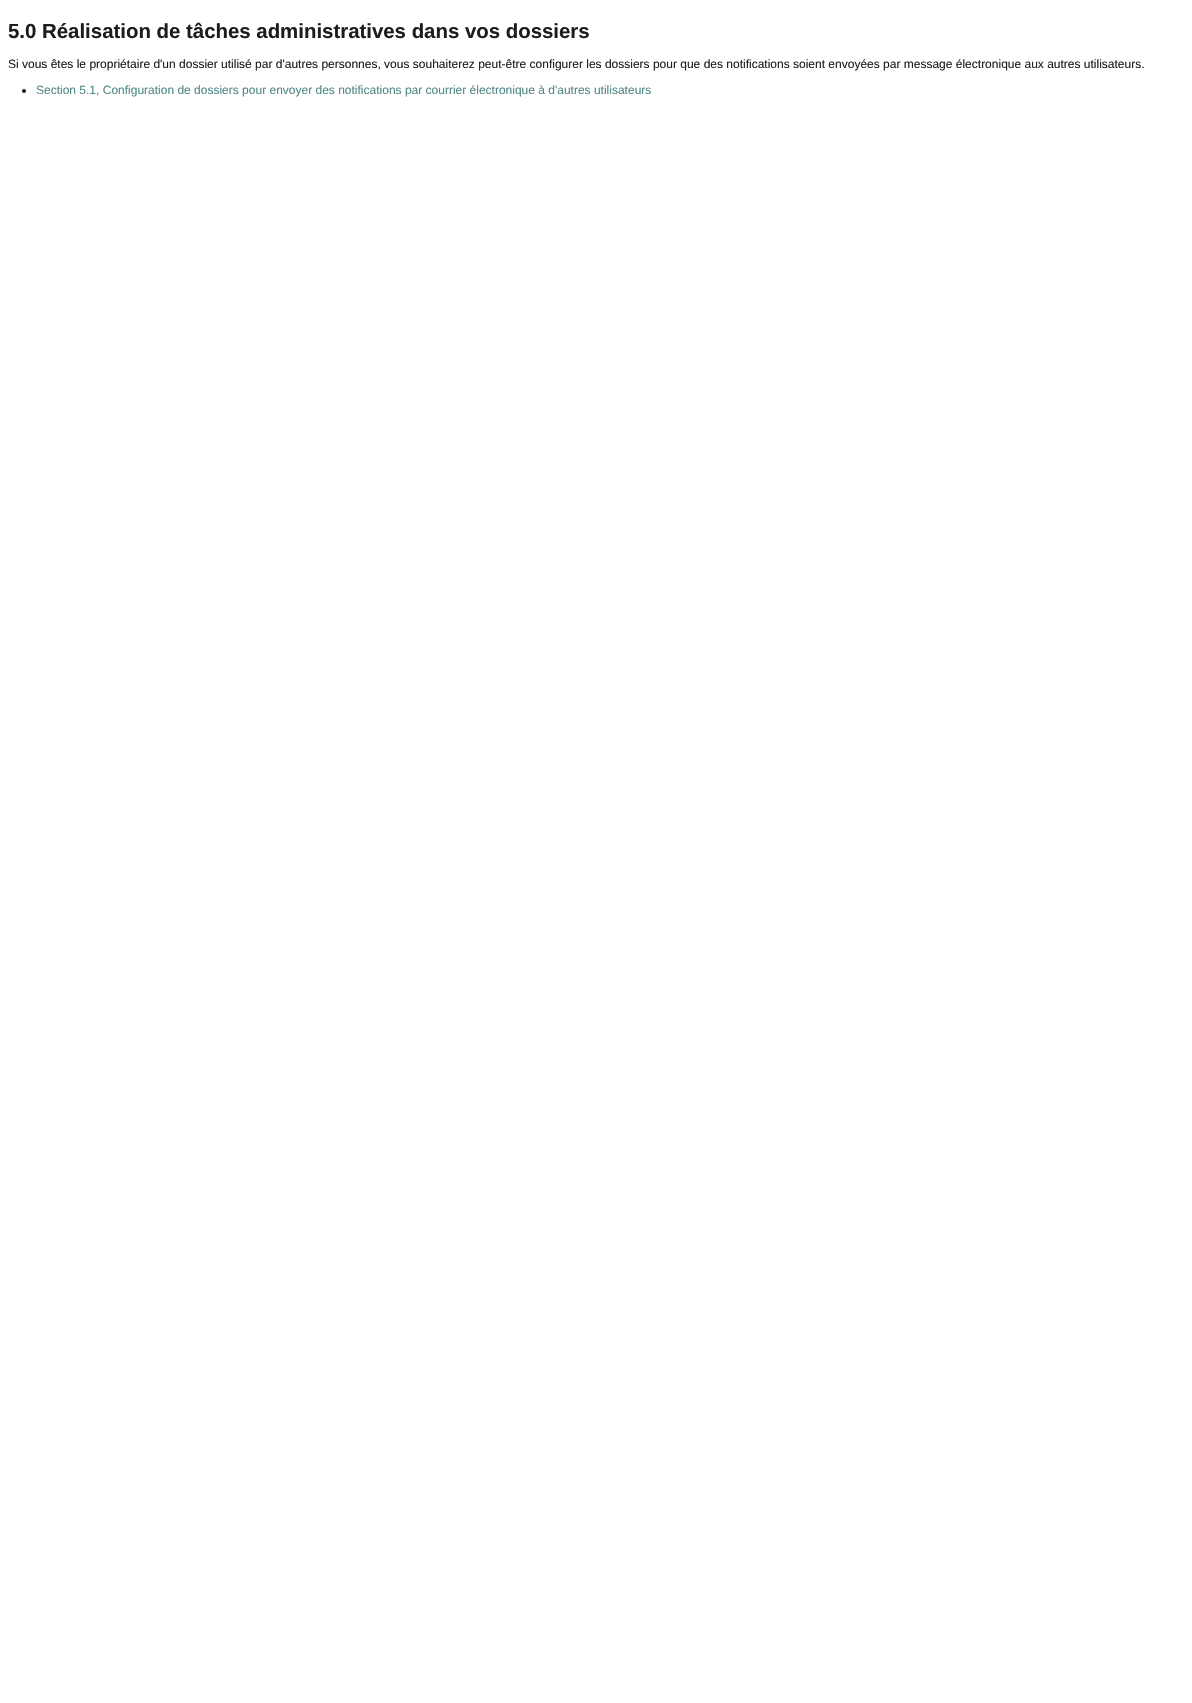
#include "include/core/SkBlurTypes.h"
#include "include/core/SkCanvas.h"
#include "include/core/SkData.h"
#include "include/core/SkFont.h"
#include "include/core/SkFontMgr.h"
#include "include/core/SkImage.h"
#include "include/core/SkMaskFilter.h"
#include "include/core/SkPaint.h"
#include "include/core/SkPathBuilder.h"
#include "include/core/SkTextBlob.h"
#include "include/effects/SkDashPathEffect.h"
#include "include/effects/SkGradientShader.h"
#include "include/utils/SkParsePath.h"

extern sk_sp<SkFontMgr> fontMgr;

void draw(SkCanvas* canvas) {
    SkPaint p;
    p.setAntiAlias(true);
    auto font = [&](const char* family, int weight, float size, bool italic = false) {
        SkFontStyle style(weight, SkFontStyle::kNormal_Width,
            italic ? SkFontStyle::kItalic_Slant : SkFontStyle::kUpright_Slant);
        SkFont result(fontMgr->matchFamilyStyle(family, style), size);
        result.setSubpixel(true);
        return result;
    };
    canvas->clear(0xFFFFFFFF);
    auto font1 = font("Liberation Sans", 700, 20.4f);
    p.setColor(0xFF1D1D1D);
    canvas->drawString("5.0 Réalisation de tâches administratives dans vos dossiers", 8, 38, font1, p);
    auto font2 = font("Liberation Sans", 400, 12);
    canvas->drawString("Si vous êtes le propriétaire d'un dossier utilisé par d'autres personnes, vous souhaiterez peut-être configurer les dossiers pour que des notifications soient envoyées par message électronique aux autres utilisateurs.", 8, 68, font2, p);
    p.setColor(0xFF1E1E1E);
    canvas->drawCircle(24, 91, 2, p);
    p.setColor(0xFF518988);
    canvas->drawString("Section 5.1, Configuration de dossiers pour envoyer des notifications par courrier électronique à d'autres utilisateurs", 36, 94, font2, p);
}
